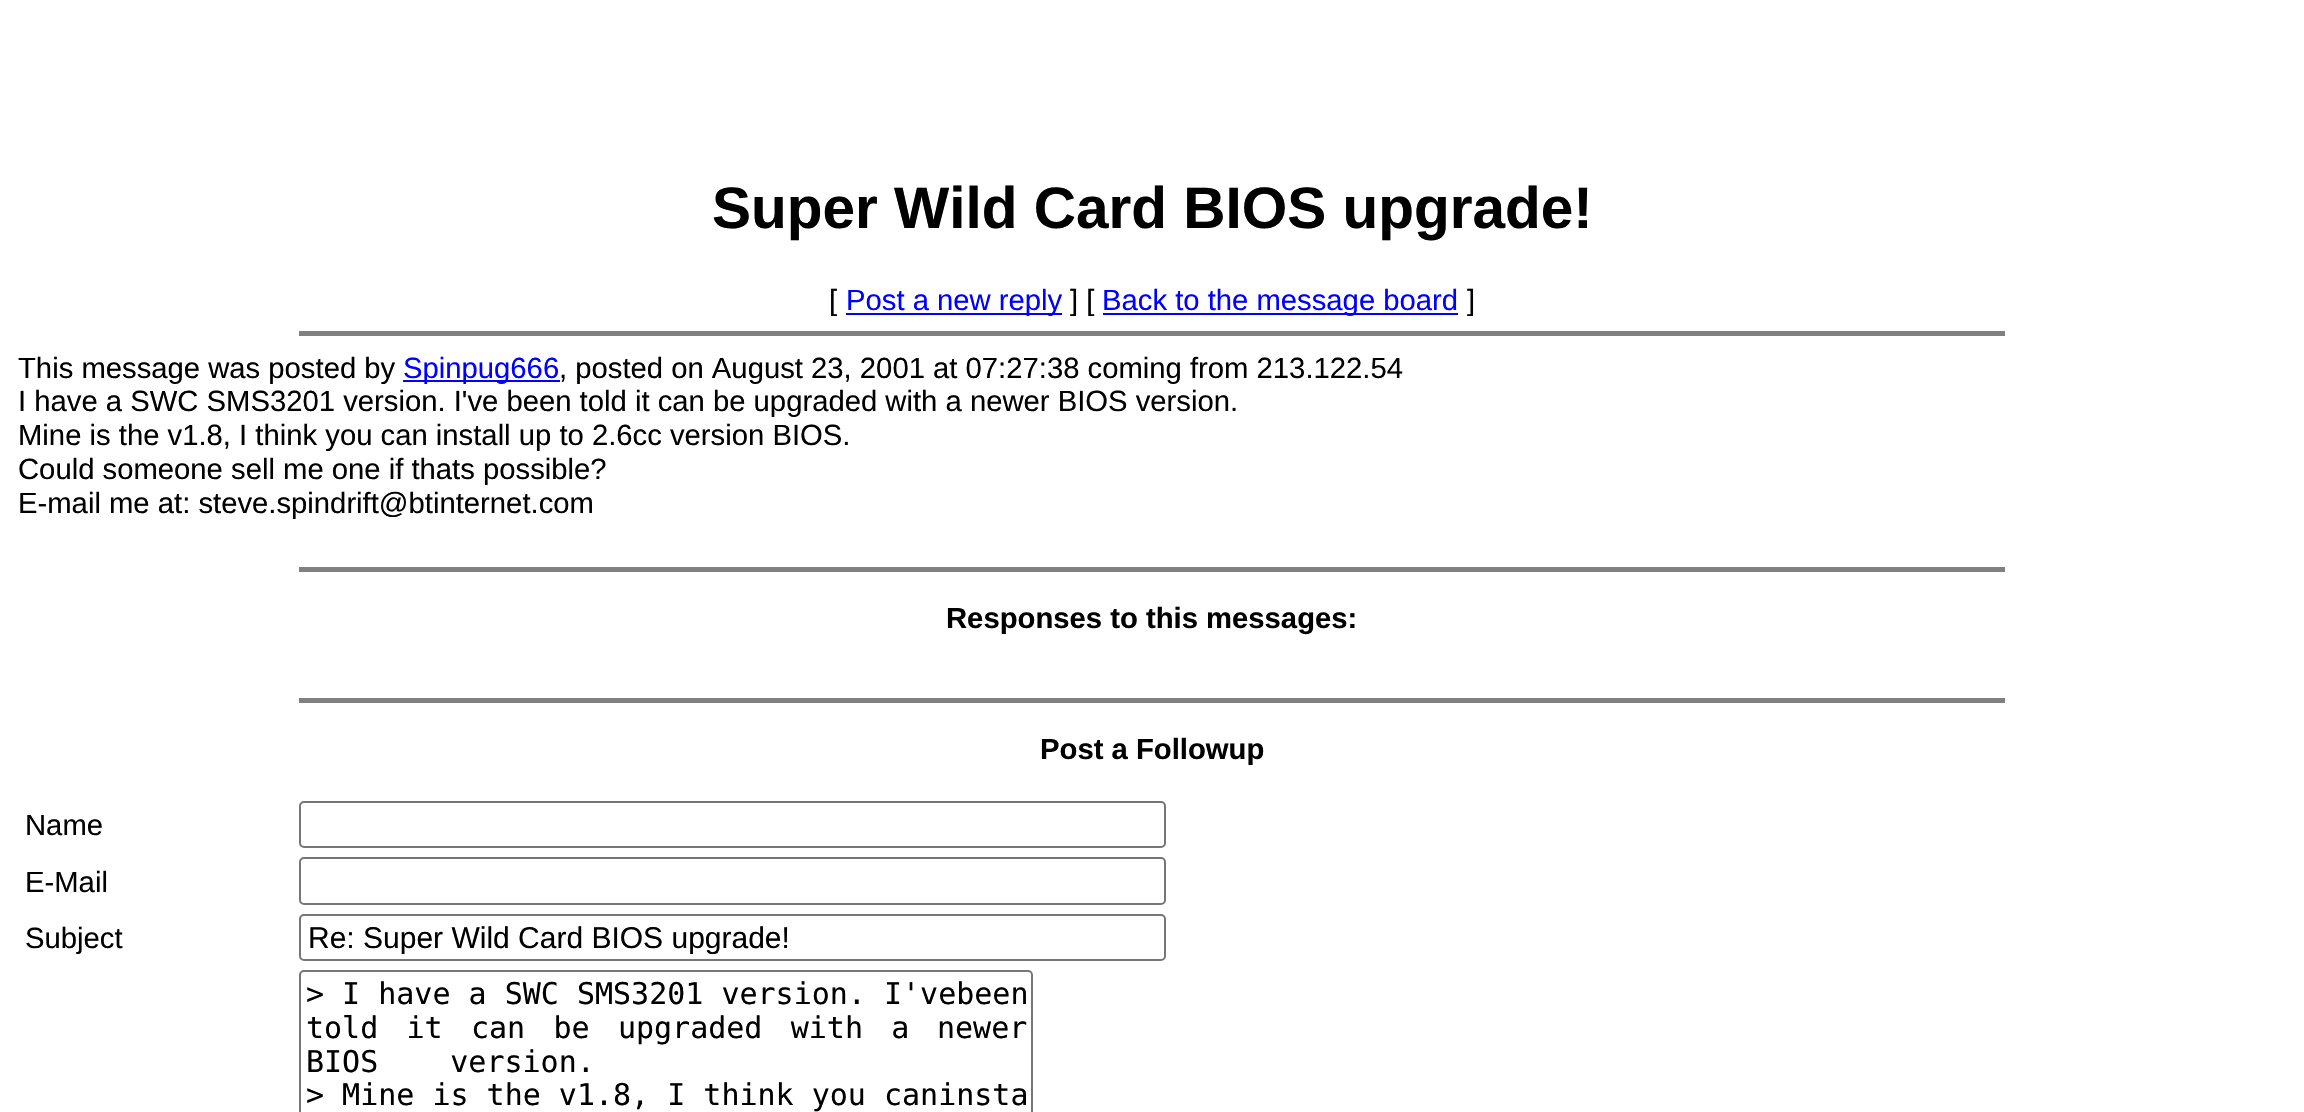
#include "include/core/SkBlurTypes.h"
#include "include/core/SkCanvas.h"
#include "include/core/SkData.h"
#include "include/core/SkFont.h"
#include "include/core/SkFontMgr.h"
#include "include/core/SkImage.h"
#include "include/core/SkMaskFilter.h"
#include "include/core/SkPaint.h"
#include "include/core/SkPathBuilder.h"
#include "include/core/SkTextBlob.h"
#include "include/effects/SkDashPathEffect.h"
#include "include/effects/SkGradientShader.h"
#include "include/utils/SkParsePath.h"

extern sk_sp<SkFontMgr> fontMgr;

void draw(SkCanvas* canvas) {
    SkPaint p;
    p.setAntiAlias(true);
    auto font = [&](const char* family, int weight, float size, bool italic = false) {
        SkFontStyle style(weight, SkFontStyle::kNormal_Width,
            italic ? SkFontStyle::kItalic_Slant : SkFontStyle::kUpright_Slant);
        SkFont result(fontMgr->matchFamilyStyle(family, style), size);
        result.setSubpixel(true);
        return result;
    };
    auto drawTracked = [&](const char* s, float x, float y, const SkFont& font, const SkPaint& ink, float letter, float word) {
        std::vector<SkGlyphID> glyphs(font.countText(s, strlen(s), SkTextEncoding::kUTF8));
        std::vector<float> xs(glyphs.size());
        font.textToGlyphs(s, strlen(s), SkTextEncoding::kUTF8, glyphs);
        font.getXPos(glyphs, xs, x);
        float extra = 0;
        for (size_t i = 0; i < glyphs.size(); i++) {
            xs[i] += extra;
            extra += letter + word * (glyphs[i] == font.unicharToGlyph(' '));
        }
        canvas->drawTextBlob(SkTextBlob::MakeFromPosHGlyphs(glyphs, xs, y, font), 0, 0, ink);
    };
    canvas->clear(0xFFFFFFFF);
    auto font1 = font("Liberation Sans", 700, 58.5f);
    p.setColor(0xFF000000);
    canvas->drawString("Super Wild Card BIOS upgrade!", 712, 228, font1, p);
    auto font2 = font("Liberation Sans", 400, 29.25f);
    canvas->drawString("[", 829, 310, font2, p);
    p.setColor(0xFF0000FF);
    canvas->drawRect(SkRect::MakeLTRB(846, 313, 1062, 315), p);
    canvas->drawString("Post a new reply", 846, 310, font2, p);
    p.setColor(0xFF000000);
    canvas->drawString("] [", 1070, 310, font2, p);
    p.setColor(0xFF0000FF);
    canvas->drawRect(SkRect::MakeLTRB(1103, 313, 1458, 315), p);
    canvas->drawString("Back to the message board", 1102, 310, font2, p);
    p.setColor(0xFF000000);
    canvas->drawString("]", 1467, 310, font2, p);
    p.setColor(0xFF808080);
    canvas->drawRect(SkRect::MakeLTRB(299, 331, 2005, 336), p);
    p.setColor(0xFF000000);
    canvas->drawString("This message was posted by", 18, 378, font2, p);
    p.setColor(0xFF0000FF);
    canvas->drawRect(SkRect::MakeLTRB(403, 380, 560, 382), p);
    canvas->drawString("Spinpug666", 403, 378, font2, p);
    p.setColor(0xFF000000);
    {
        const struct { const char* s; float x, y; } items[] = {
            {", posted on August 23, 2001 at 07:27:38 coming from 213.122.54", 559, 378},
            {"I have a SWC SMS3201 version. I've been told it can be upgraded with a newer BIOS version.", 18, 411},
            {"Mine is the v1.8, I think you can install up to 2.6cc version BIOS.", 18, 445},
            {"Could someone sell me one if thats possible?", 18, 479},
            {"E-mail me at: steve.spindrift@btinternet.com", 18, 513},
        };
        for (auto [s, x, y] : items) {
            canvas->drawString(s, x, y, font2, p);
        }
    }
    p.setColor(0xFF808080);
    canvas->drawRect(SkRect::MakeLTRB(299, 567, 2005, 572), p);
    auto font3 = font("Liberation Sans", 700, 29.25f);
    p.setColor(0xFF000000);
    canvas->drawString("Responses to this messages:", 946, 628, font3, p);
    p.setColor(0xFF808080);
    canvas->drawRect(SkRect::MakeLTRB(299, 698, 2005, 703), p);
    p.setColor(0xFF000000);
    canvas->drawString("Post a Followup", 1040, 759, font3, p);
    canvas->drawString("Name", 25, 835, font2, p);
    p.setStyle(SkPaint::kStroke_Style);
    p.setStrokeWidth(2);
    p.setColor(0xFF767676);
    canvas->drawRoundRect(SkRect::MakeLTRB(300, 802, 1165, 847), 4, 4, p);
    p.setStyle(SkPaint::kFill_Style);
    p.setColor(0xFF000000);
    canvas->drawString("E-Mail", 25, 892, font2, p);
    p.setStyle(SkPaint::kStroke_Style);
    p.setColor(0xFF767676);
    canvas->drawRoundRect(SkRect::MakeLTRB(300, 858, 1165, 904), 4, 4, p);
    p.setStyle(SkPaint::kFill_Style);
    p.setColor(0xFF000000);
    canvas->drawString("Subject", 25, 948, font2, p);
    p.setStyle(SkPaint::kStroke_Style);
    p.setColor(0xFF767676);
    canvas->drawRoundRect(SkRect::MakeLTRB(300, 915, 1165, 960), 4, 4, p);
    canvas->save();
    canvas->clipRect(SkRect::MakeLTRB(308, 920, 1157, 954));
    auto font4 = font("Liberation Sans", 400, 30);
    p.setStyle(SkPaint::kFill_Style);
    p.setColor(0xFF000000);
    canvas->drawString("Re: Super Wild Card BIOS upgrade!", 308, 948, font4, p);
    canvas->restore();
    p.setStyle(SkPaint::kStroke_Style);
    p.setColor(0xFF767676);
    canvas->drawRoundRect(SkRect::MakeLTRB(300, 971, 1032, 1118), 4, 4, p);
    auto font5 = font("DejaVu Sans Mono", 400, 30);
    p.setStyle(SkPaint::kFill_Style);
    p.setColor(0xFF000000);
    canvas->drawString("> I have a SWC SMS3201 version. I'vebeen", 306, 1004, font5, p);
    drawTracked("told it can be upgraded with a", 306, 1038, font5, p, 0, 10.25f);
    canvas->drawString("newer", 937, 1038, font5, p);
    drawTracked("BIOS version.", 306, 1072, font5, p, 0, 54);
    canvas->drawString("> Mine is the v1.8, I think you caninsta", 306, 1105, font5, p);
}
